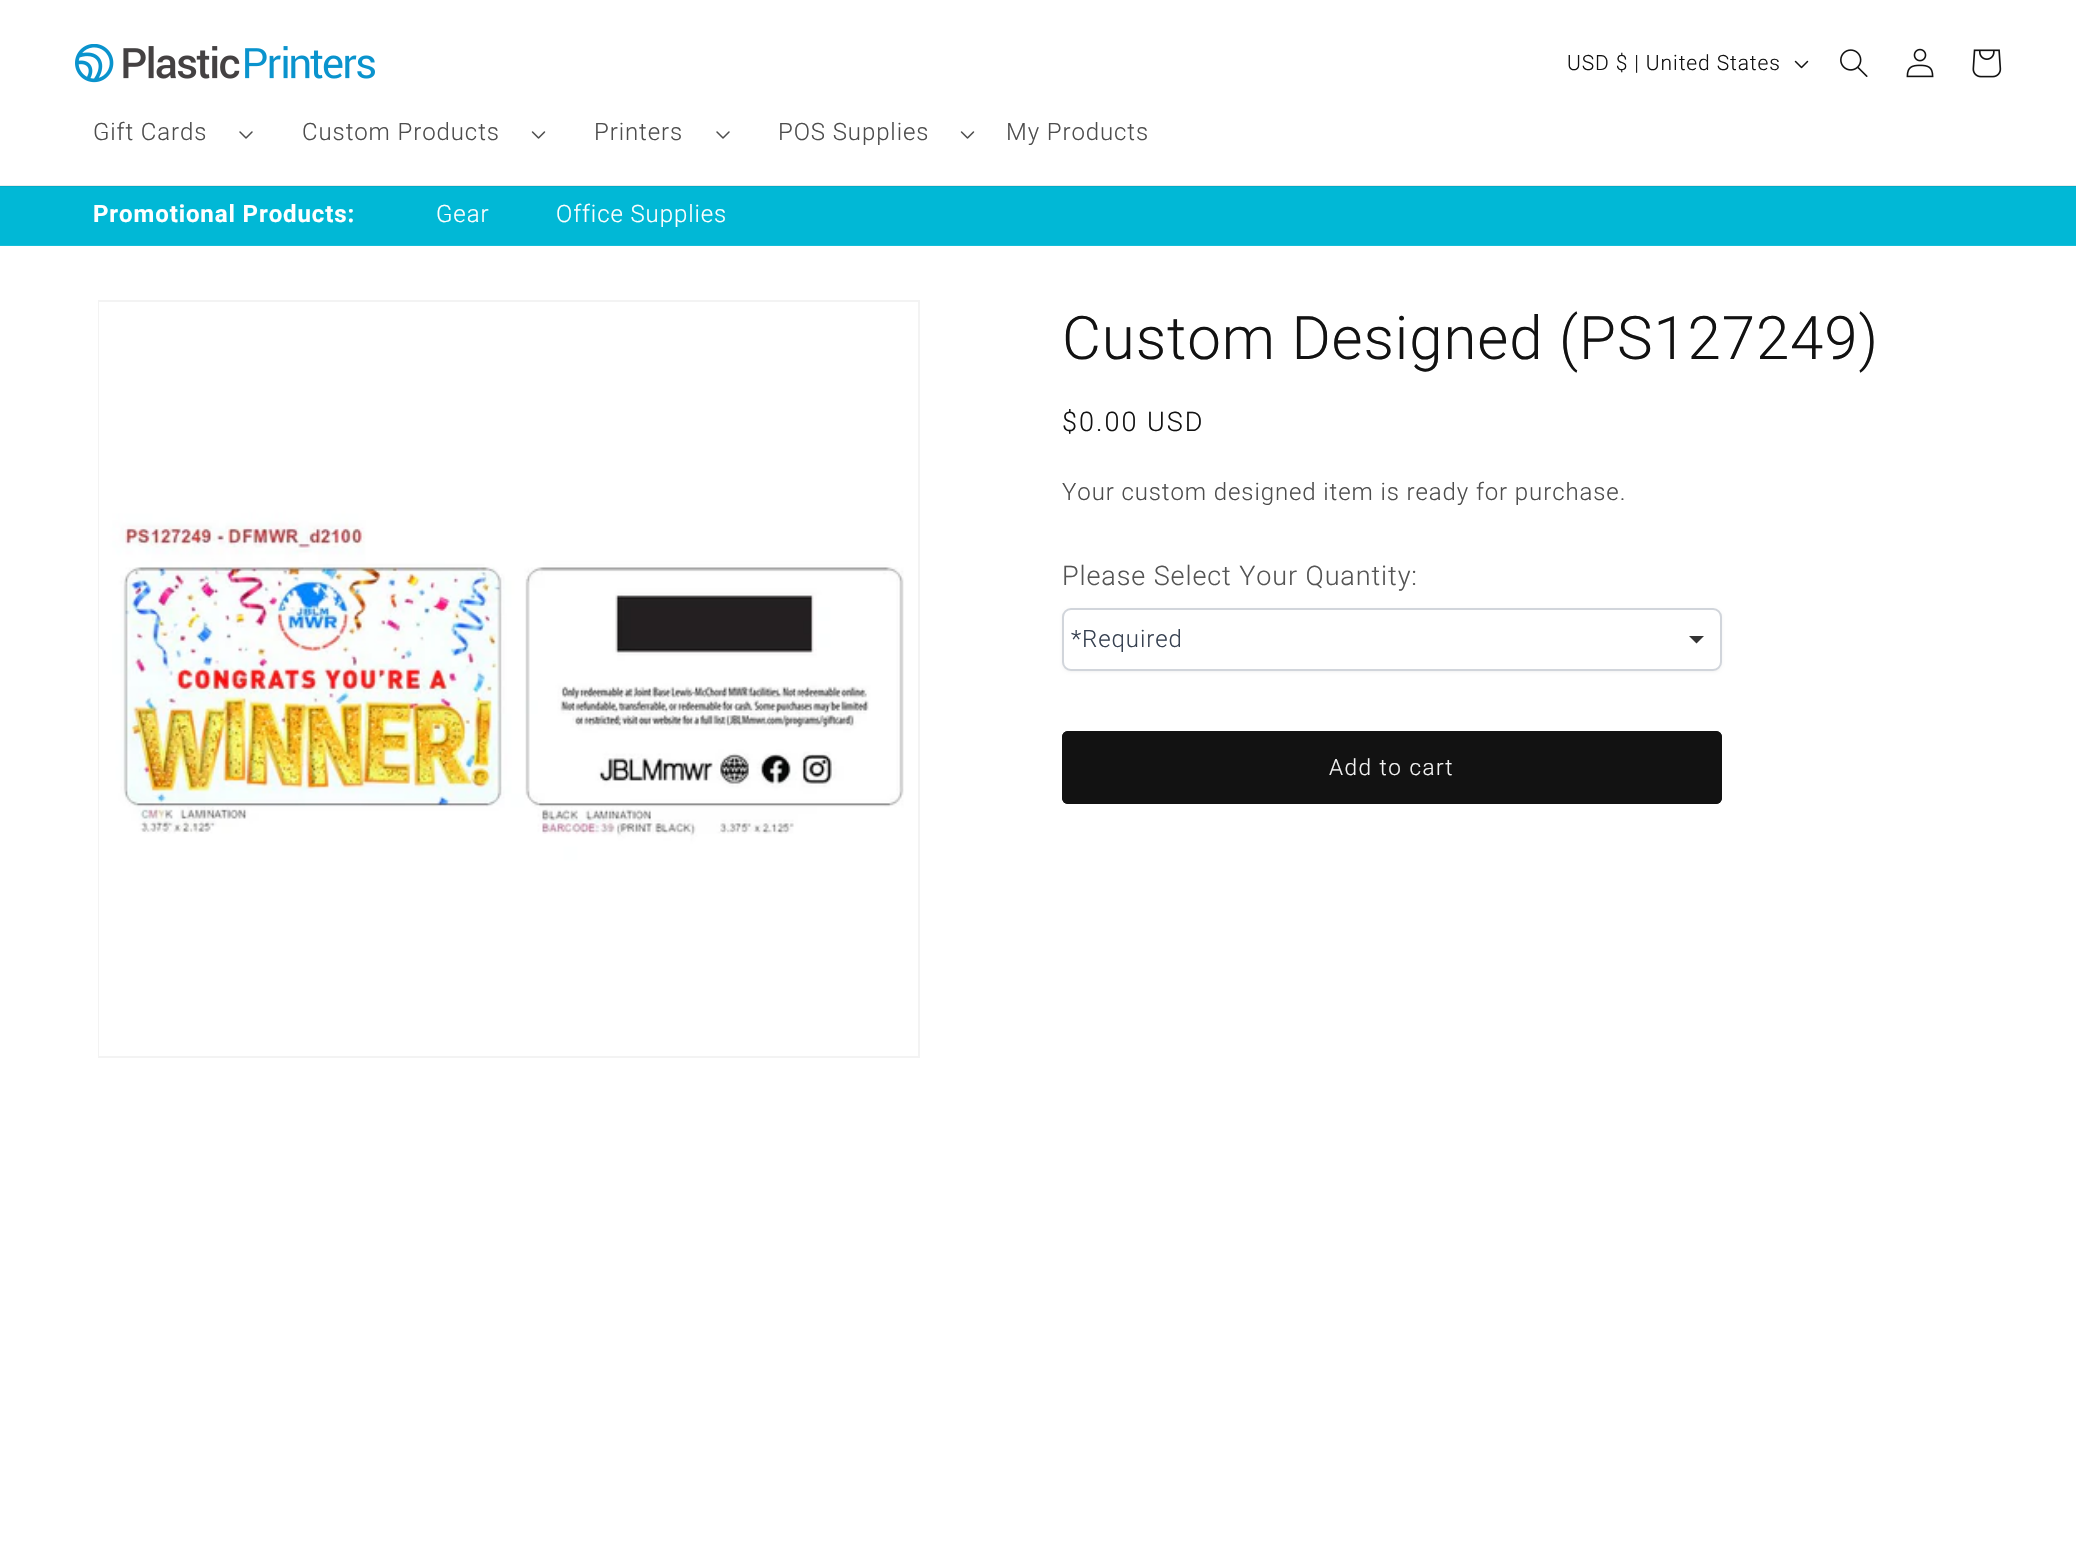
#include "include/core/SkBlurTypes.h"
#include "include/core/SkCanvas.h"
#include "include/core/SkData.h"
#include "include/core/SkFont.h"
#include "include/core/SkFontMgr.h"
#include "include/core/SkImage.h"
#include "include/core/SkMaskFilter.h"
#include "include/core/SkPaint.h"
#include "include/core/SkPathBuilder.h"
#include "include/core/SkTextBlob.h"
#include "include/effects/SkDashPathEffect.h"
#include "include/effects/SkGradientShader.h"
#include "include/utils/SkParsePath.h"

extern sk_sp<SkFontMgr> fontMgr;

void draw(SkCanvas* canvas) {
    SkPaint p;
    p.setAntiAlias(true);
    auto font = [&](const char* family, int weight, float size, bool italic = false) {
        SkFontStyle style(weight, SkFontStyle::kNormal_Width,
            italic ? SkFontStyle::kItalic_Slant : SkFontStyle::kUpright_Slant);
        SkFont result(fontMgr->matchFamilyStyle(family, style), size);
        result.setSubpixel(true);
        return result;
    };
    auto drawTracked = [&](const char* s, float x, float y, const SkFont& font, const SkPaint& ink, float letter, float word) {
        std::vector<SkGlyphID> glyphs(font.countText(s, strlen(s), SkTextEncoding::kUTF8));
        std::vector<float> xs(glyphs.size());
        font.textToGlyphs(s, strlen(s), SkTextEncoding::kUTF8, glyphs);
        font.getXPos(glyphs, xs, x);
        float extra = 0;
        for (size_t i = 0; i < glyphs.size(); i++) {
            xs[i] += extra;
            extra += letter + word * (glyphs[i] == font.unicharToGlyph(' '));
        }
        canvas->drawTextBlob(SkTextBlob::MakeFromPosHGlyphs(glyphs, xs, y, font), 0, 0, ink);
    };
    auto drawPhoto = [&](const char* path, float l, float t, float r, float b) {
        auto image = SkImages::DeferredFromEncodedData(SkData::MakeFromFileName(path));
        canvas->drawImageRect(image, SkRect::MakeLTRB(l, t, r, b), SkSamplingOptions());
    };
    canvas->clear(0xFFFFFFFF);
    p.setColor(0xFFECECEC);
    canvas->drawRect(SkRect::MakeLTRB(0, 185, 2076, 186), p);
    drawPhoto("media/1.png", 75, 44, 375, 83);
    auto font1 = font("Roboto", 300, 21);
    p.setColor(0xFF121212);
    drawTracked("USD $ | United States", 1567, 70, font1, p, 0.9f, 0);
    drawPhoto("media/2.png", 1794, 60, 1809, 69);
    drawPhoto("media/3.png", 1840, 49, 1868, 77);
    drawPhoto("media/4.png", 1906, 48, 1934, 78);
    drawPhoto("media/5.png", 1972, 49, 2002, 78);
    auto font2 = font("Roboto", 300, 24);
    p.setColor(0xFF4D4D4D);
    drawTracked("Gift Cards", 93, 140, font2, p, 0.9f, 0);
    drawPhoto("media/6.png", 239, 131, 253, 139);
    drawTracked("Custom Products", 302, 140, font2, p, 0.9f, 0);
    drawPhoto("media/7.png", 531, 131, 546, 139);
    drawTracked("Printers", 594, 140, font2, p, 0.9f, 0);
    drawPhoto("media/6.png", 716, 131, 730, 139);
    drawTracked("POS Supplies", 778, 140, font2, p, 0.9f, 0);
    drawPhoto("media/7.png", 960, 131, 975, 139);
    drawTracked("My Products", 1006, 140, font2, p, 0.9f, 0);
    {
        const struct { float l, t, r, b; SkColor color; } items[] = {
            {0, 187, 2076, 245, 0xFF01B8D6},
            {0, 186, 2076, 187, 0xFF02ABC6},
            {0, 245, 2076, 246, 0xFF15BED9},
        };
        for (auto [l, t, r, b, color] : items) {
            p.setColor(color);
            canvas->drawRect(SkRect::MakeLTRB(l, t, r, b), p);
        }
    }
    auto font3 = font("Roboto", 700, 24);
    p.setColor(0xFFFFFFFF);
    drawTracked("Promotional Products:", 93, 222, font3, p, 0.9f, 0);
    drawTracked("Gear", 436, 222, font2, p, 0.9f, 0);
    drawTracked("Office Supplies", 556, 222, font2, p, 0.9f, 0);
    p.setStyle(SkPaint::kStroke_Style);
    p.setStrokeWidth(2);
    p.setColor(0xFFF3F3F3);
    canvas->drawRect(SkRect::MakeLTRB(99, 301, 919, 1057), p);
    drawPhoto("media/8.png", 99, 302, 904, 1056);
    auto font4 = font("Roboto", 300, 60);
    p.setStyle(SkPaint::kFill_Style);
    p.setColor(0xFF121212);
    drawTracked("Custom Designed (PS127249)", 1062, 359, font4, p, 0.9f, 0);
    auto font5 = font("Roboto", 300, 27);
    drawTracked("$0.00 USD", 1062, 431, font5, p, 2, 0);
    p.setColor(0xFF4D4D4D);
    drawTracked("Your custom designed item is ready for purchase.", 1062, 500, font2, p, 0.9f, 0);
    p.setColor(0xFF555555);
    drawTracked("Please Select Your Quantity:", 1062, 585, font5, p, 0.9f, 0);
    p.setColor(0x0D000000);
    p.setMaskFilter(SkMaskFilter::MakeBlur(kNormal_SkBlurStyle, 1.5f));
    canvas->drawRoundRect(SkRect::MakeLTRB(1062, 609, 1722, 672), 9, 9, p);
    p.setMaskFilter(nullptr);
    p.setColor(0xFFFFFFFF);
    canvas->drawRoundRect(SkRect::MakeLTRB(1063, 609, 1721, 670), 8, 8, p);
    p.setStyle(SkPaint::kStroke_Style);
    p.setColor(0xFFD1D5DB);
    canvas->drawRoundRect(SkRect::MakeLTRB(1063, 609, 1721, 670), 8, 8, p);
    p.setStyle(SkPaint::kFill_Style);
    p.setColor(0xFF374151);
    drawTracked("*Required", 1071, 647, font2, p, 0.9f, 0);
    p.setColor(0xFF333333);
    canvas->drawPath(SkPathBuilder().moveTo(1689, 636).lineTo(1704, 636).lineTo(1696.5f, 643.5f).close().detach(), p);
    p.setColor(0xFF121212);
    canvas->drawRoundRect(SkRect::MakeLTRB(1062, 731, 1722, 804), 6, 6, p);
    p.setStyle(SkPaint::kStroke_Style);
    p.setStrokeWidth(3);
    canvas->drawRoundRect(SkRect::MakeLTRB(1063.5f, 732.5f, 1720.5f, 802.5f), 4.5f, 4.5f, p);
    auto font6 = font("Roboto", 300, 22.5f);
    p.setStyle(SkPaint::kFill_Style);
    p.setColor(0xFFF3F3F3);
    drawTracked("Add to cart", 1329, 775, font6, p, 1.5f, 0);
}
